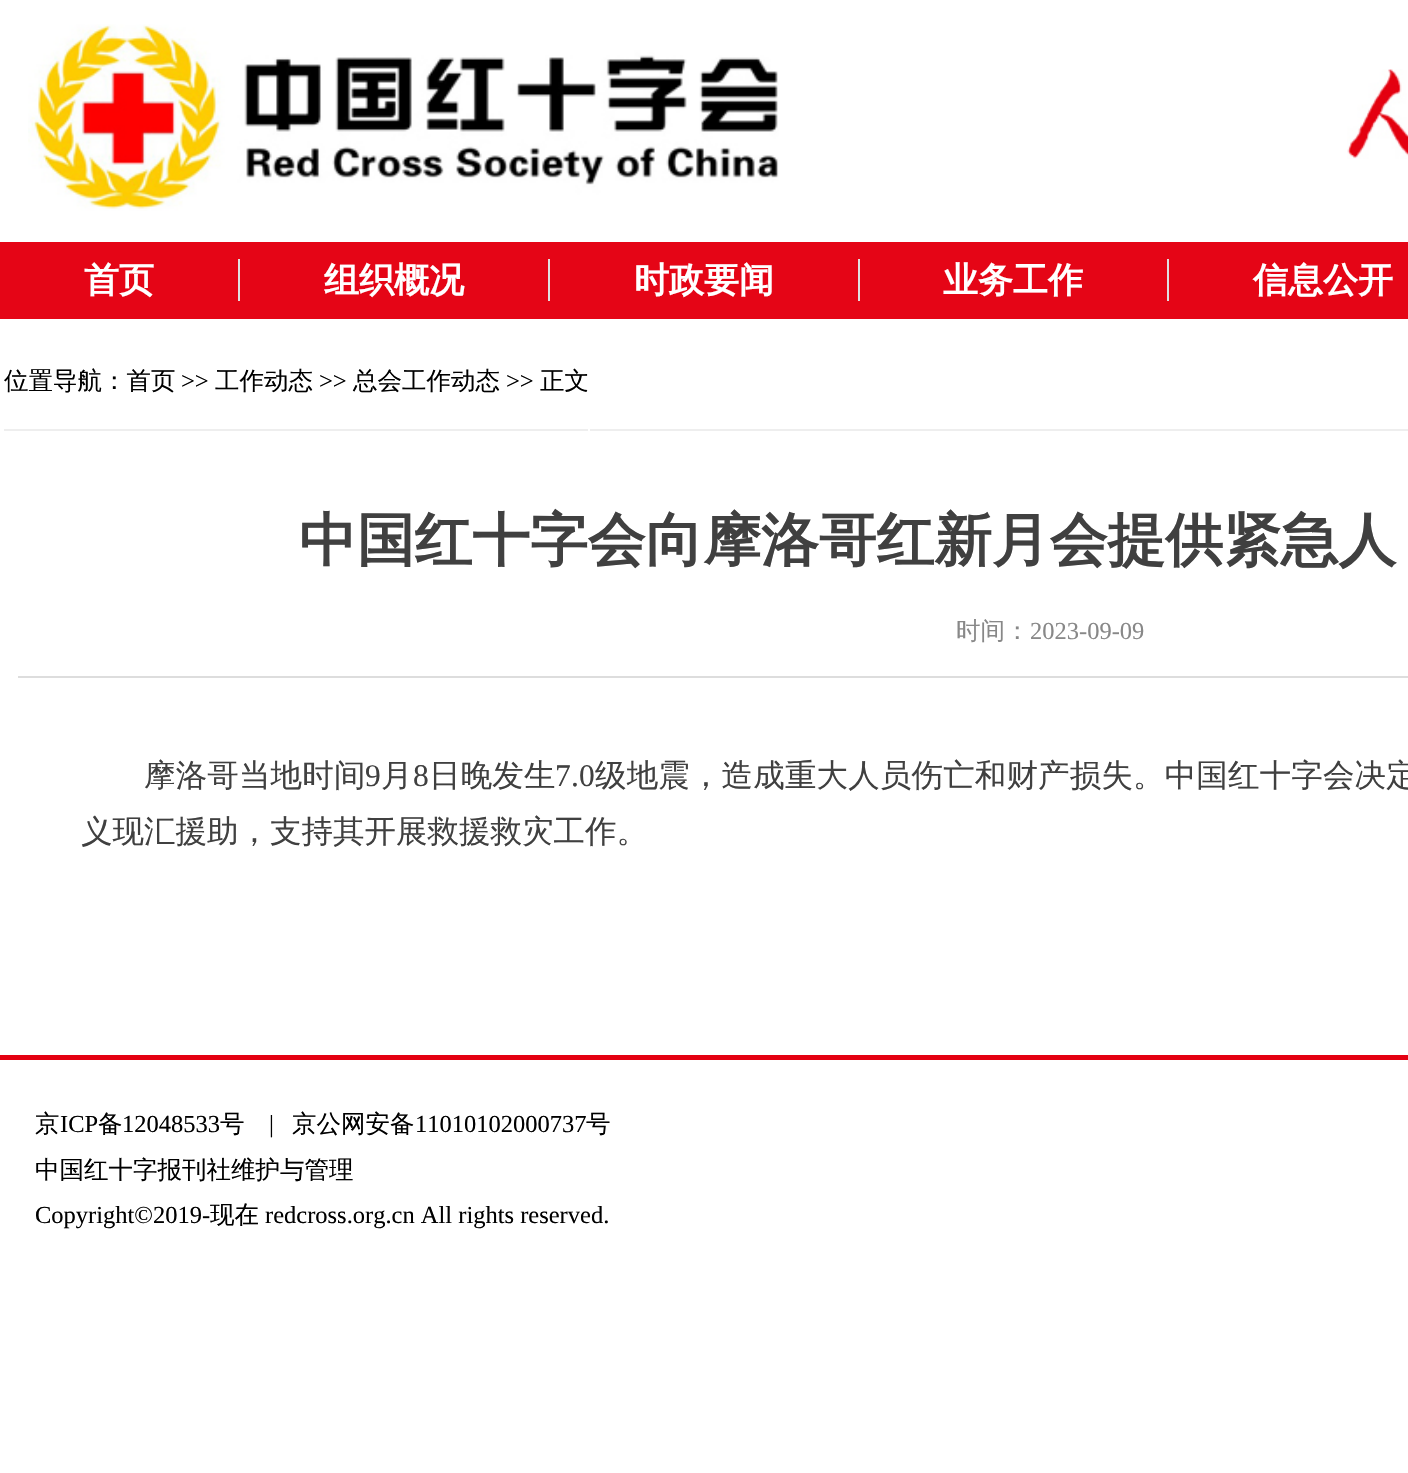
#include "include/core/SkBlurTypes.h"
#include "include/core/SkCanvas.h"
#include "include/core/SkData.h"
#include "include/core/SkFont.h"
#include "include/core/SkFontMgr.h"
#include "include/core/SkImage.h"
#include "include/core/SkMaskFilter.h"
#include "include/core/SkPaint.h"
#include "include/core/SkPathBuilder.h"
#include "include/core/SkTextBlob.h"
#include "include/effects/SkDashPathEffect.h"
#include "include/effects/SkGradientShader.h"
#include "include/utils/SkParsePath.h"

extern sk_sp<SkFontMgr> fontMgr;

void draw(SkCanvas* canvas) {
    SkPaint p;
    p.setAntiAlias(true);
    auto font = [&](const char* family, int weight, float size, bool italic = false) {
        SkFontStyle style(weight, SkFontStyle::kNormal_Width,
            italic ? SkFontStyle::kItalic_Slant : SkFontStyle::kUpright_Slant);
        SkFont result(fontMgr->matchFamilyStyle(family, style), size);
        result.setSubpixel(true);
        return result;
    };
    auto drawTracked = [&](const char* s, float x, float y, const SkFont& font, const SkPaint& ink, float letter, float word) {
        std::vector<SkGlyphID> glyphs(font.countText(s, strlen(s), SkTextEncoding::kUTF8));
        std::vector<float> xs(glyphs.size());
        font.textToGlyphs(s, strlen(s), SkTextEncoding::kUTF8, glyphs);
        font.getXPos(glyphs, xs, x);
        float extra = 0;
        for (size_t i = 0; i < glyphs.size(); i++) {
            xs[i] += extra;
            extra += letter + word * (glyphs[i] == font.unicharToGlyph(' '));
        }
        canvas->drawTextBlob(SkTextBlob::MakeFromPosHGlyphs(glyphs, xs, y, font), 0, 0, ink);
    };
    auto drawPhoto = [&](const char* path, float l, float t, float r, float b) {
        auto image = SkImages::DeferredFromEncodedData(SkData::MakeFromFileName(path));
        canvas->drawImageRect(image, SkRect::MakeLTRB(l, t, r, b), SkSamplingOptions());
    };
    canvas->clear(0xFFFFFFFF);
    drawPhoto("media/1.png", 28, 24, 779, 211);
    drawPhoto("media/2.png", 1347, 69, 1408, 159);
    p.setColor(0xFFE50516);
    canvas->drawRect(SkRect::MakeLTRB(0, 242, 1408, 319), p);
    p.setColor(0xFFE0E0E0);
    canvas->drawRect(SkRect::MakeLTRB(238, 259, 240, 301), p);
    auto font1 = font("WenQuanYi Zen Hei", 700, 35);
    p.setColor(0xFFFFFFFF);
    canvas->drawString("首页", 84, 292, font1, p);
    p.setColor(0xFFE0E0E0);
    canvas->drawRect(SkRect::MakeLTRB(548, 259, 550, 301), p);
    p.setColor(0xFFFFFFFF);
    canvas->drawString("组织概况", 324, 292, font1, p);
    p.setColor(0xFFE0E0E0);
    canvas->drawRect(SkRect::MakeLTRB(858, 259, 860, 301), p);
    p.setColor(0xFFFFFFFF);
    canvas->drawString("时政要闻", 634, 292, font1, p);
    p.setColor(0xFFE0E0E0);
    canvas->drawRect(SkRect::MakeLTRB(1167, 259, 1169, 301), p);
    p.setColor(0xFFFFFFFF);
    canvas->drawString("业务工作", 943, 292, font1, p);
    canvas->drawString("信息公开", 1253, 292, font1, p);
    p.setColor(0xFFEEEEEE);
    canvas->drawRect(SkRect::MakeLTRB(0, 429, 1408, 431), p);
    p.setColor(0xFFFFFFFF);
    canvas->drawRect(SkRect::MakeLTRB(0, 429, 2, 431), p);
    p.setStyle(SkPaint::kStroke_Style);
    p.setStrokeWidth(2);
    canvas->drawRect(SkRect::MakeLTRB(3, 328, 589, 435), p);
    auto font2 = font("WenQuanYi Zen Hei", 500, 24.5f);
    p.setStyle(SkPaint::kFill_Style);
    p.setColor(0xFF000000);
    canvas->drawString("位置导航：首页", 4, 389, font2, p);
    auto font3 = font("Liberation Serif", 400, 24.5f);
    canvas->drawString(">>", 181, 389, font3, p);
    canvas->drawString("工作动态", 215, 389, font2, p);
    canvas->drawString(">>", 319, 389, font3, p);
    canvas->drawString("总会工作动态", 353, 389, font2, p);
    canvas->drawString(">>", 506, 389, font3, p);
    canvas->drawString("正文", 540, 389, font2, p);
    p.setColor(0xFFDDDDDD);
    canvas->drawRect(SkRect::MakeLTRB(18, 676, 1408, 678), p);
    auto font4 = font("WenQuanYi Zen Hei", 700, 57.75f);
    p.setColor(0xFF404040);
    canvas->drawString("中国红十字会向摩洛哥红新月会提供紧急人", 299, 560, font4, p);
    p.setColor(0xFF888888);
    canvas->drawString("时间：", 956, 639, font2, p);
    canvas->drawString("2023-09-09", 1030, 639, font3, p);
    auto font5 = font("WenQuanYi Zen Hei", 500, 31.5f);
    p.setColor(0xFF404040);
    drawTracked("摩洛哥当地时间", 144, 786, font5, p, 0.15f, 0);
    auto font6 = font("Liberation Serif", 400, 31.5f);
    drawTracked("9", 365, 786, font6, p, 0.15f, 0);
    drawTracked("月", 381, 786, font5, p, 0.15f, 0);
    drawTracked("8", 413, 786, font6, p, 0.15f, 0);
    drawTracked("日晚发生", 429, 786, font5, p, 0.15f, 0);
    drawTracked("7.0", 555, 786, font6, p, 0.15f, 0);
    drawTracked("级地震，造成重大人员伤亡和财产损失。中国红十字会决定", 595, 786, font5, p, 0.15f, 0);
    canvas->drawString("义现汇援助，支持其开展救援救灾工作。", 81, 842, font5, p);
    p.setColor(0xFFE40011);
    canvas->drawRect(SkRect::MakeLTRB(0, 1055, 1408, 1060), p);
    p.setColor(0xFF000000);
    canvas->drawString("京", 35, 1132, font2, p);
    canvas->drawString("ICP", 60, 1132, font3, p);
    canvas->drawString("备", 98, 1132, font2, p);
    canvas->drawString("12048533", 122, 1132, font3, p);
    canvas->drawString("号", 220, 1132, font2, p);
    canvas->drawString("|", 269, 1132, font3, p);
    canvas->drawString("京公网安备", 292, 1132, font2, p);
    canvas->drawString("11010102000737", 415, 1132, font3, p);
    canvas->drawString("号", 586, 1132, font2, p);
    canvas->drawString("中国红十字报刊社维护与管理", 35, 1178, font2, p);
    canvas->drawString("Copyright©2019-", 35, 1223, font3, p);
    canvas->drawString("现在", 210, 1223, font2, p);
    canvas->drawString("redcross.org.cn All rights reserved.", 265, 1223, font3, p);
}
